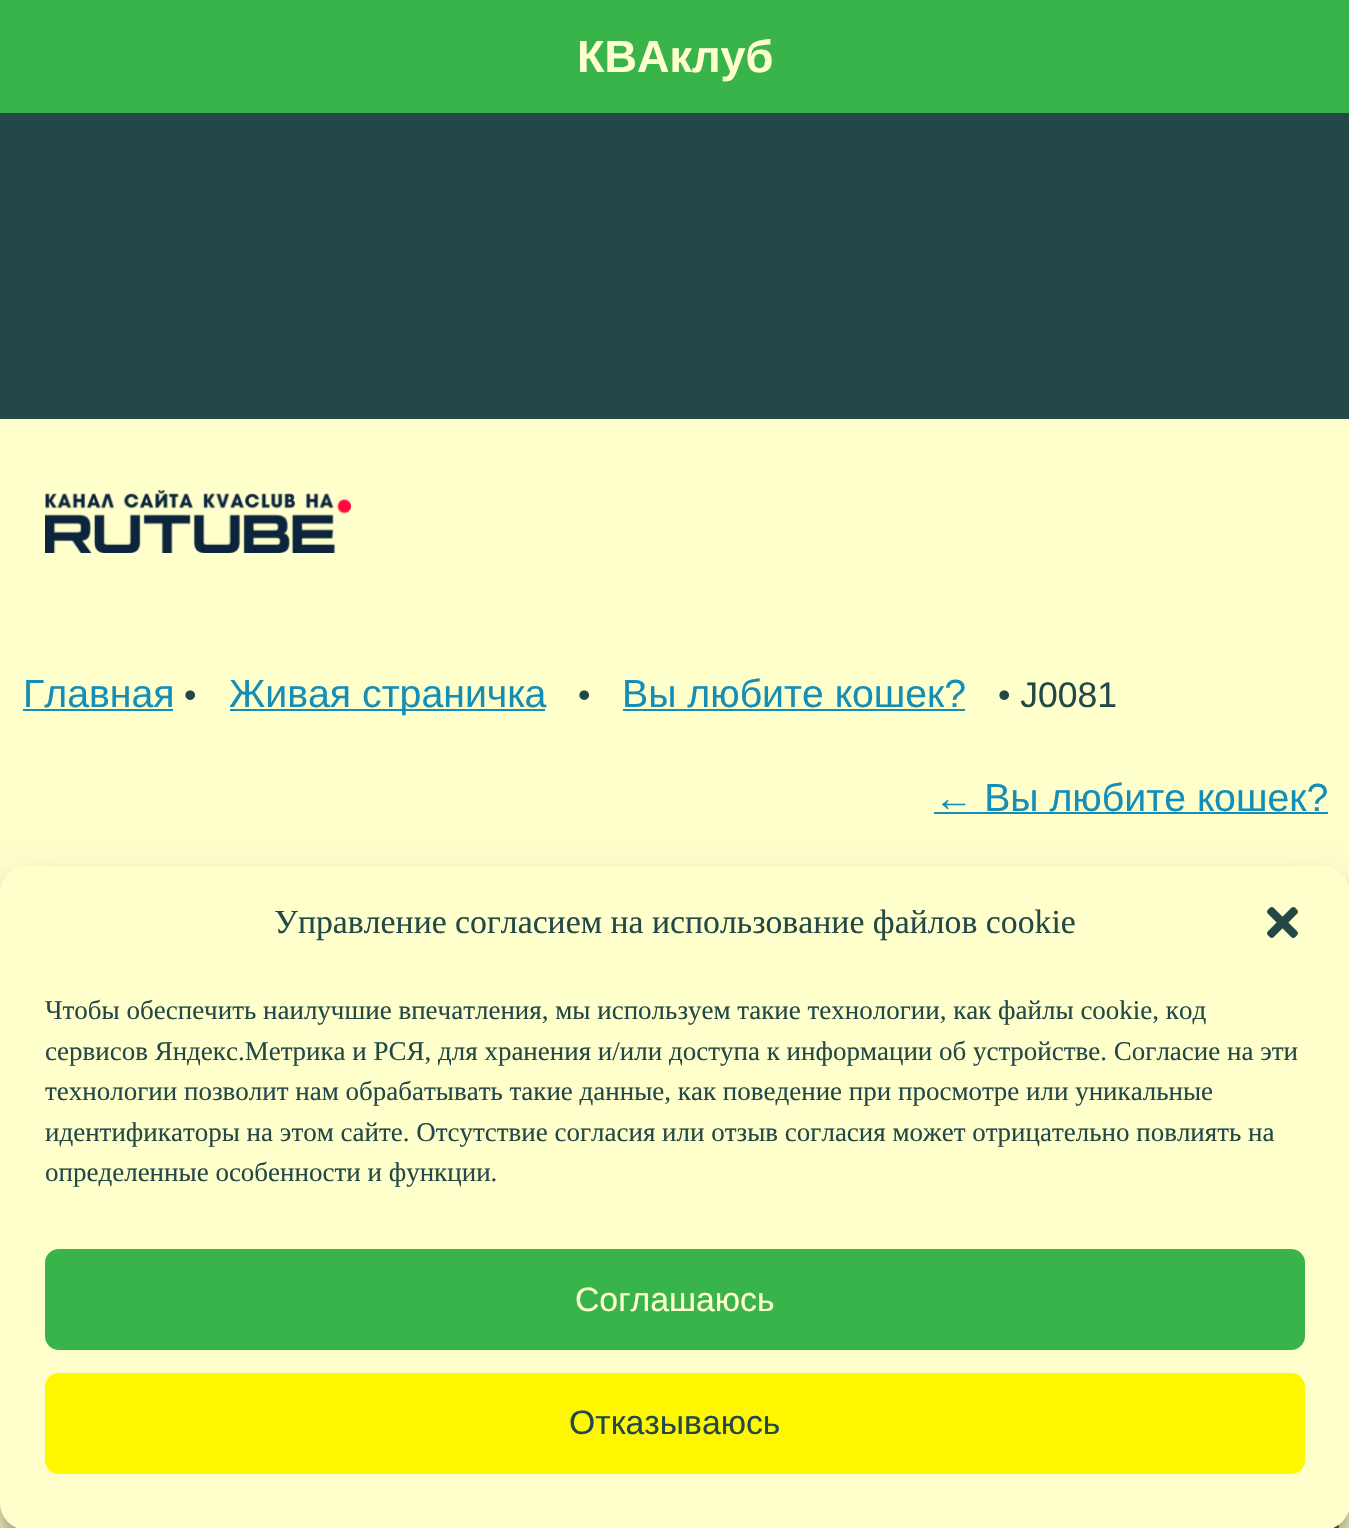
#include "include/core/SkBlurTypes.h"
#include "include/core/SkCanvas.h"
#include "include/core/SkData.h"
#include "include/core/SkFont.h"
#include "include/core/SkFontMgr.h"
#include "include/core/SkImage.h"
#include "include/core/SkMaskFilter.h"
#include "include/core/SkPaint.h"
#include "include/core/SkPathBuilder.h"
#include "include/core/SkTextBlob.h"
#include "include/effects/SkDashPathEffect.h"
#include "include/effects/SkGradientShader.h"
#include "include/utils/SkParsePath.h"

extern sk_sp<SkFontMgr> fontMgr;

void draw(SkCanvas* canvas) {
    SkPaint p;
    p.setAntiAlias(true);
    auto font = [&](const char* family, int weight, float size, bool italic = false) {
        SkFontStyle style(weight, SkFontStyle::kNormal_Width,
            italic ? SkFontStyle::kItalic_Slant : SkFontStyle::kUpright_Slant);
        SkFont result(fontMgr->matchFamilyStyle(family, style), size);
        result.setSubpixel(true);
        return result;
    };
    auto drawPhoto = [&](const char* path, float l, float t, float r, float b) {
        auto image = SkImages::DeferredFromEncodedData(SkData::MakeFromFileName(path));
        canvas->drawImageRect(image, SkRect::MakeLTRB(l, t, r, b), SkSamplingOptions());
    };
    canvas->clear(0xFF234848);
    p.setColor(0xFF39B44B);
    canvas->drawRect(SkRect::MakeLTRB(0, 0, 1349, 113), p);
    auto font1 = font("Liberation Sans", 700, 45);
    p.setColor(0xFFFFFECF);
    canvas->drawString("КВАклуб", 577, 72, font1, p);
    p.setColor(0xFFFFFFCC);
    canvas->drawRect(SkRect::MakeLTRB(0, 419, 1349, 1528), p);
    drawPhoto("media/1.png", 45, 490, 351, 553);
    auto font2 = font("Liberation Sans", 400, 39.25f);
    p.setColor(0xFF158EB7);
    canvas->drawString("Главная", 23, 707, font2, p);
    canvas->drawRect(SkRect::MakeLTRB(23, 709, 173, 711), p);
    auto font3 = font("Liberation Sans", 400, 35.5f);
    p.setColor(0xFF234848);
    canvas->drawString("•", 184, 707, font3, p);
    p.setColor(0xFF158EB7);
    canvas->drawRect(SkRect::MakeLTRB(230, 709, 545, 711), p);
    canvas->drawString("Живая страничка", 229, 707, font2, p);
    p.setColor(0xFF234848);
    canvas->drawString("•", 578, 707, font3, p);
    p.setColor(0xFF158EB7);
    canvas->drawString("Вы любите кошек?", 622, 707, font2, p);
    canvas->drawRect(SkRect::MakeLTRB(623, 709, 965, 711), p);
    p.setColor(0xFF234848);
    canvas->drawString("• J0081", 998, 707, font3, p);
    p.setColor(0xFF158EB7);
    canvas->drawString("← Вы любите кошек?", 934, 811, font2, p);
    canvas->drawRect(SkRect::MakeLTRB(934, 812, 1328, 814), p);
    drawPhoto("media/2.png", 1333, 1524, 1339, 1528);
    p.setColor(0x3B000000);
    p.setMaskFilter(SkMaskFilter::MakeBlur(kNormal_SkBlurStyle, 7));
    canvas->drawRoundRect(SkRect::MakeLTRB(0, 880, 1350, 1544), 27, 27, p);
    p.setMaskFilter(nullptr);
    p.setColor(0x30000000);
    p.setMaskFilter(SkMaskFilter::MakeBlur(kNormal_SkBlurStyle, 22.5f));
    canvas->drawRoundRect(SkRect::MakeLTRB(0, 889, 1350, 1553), 27, 27, p);
    p.setMaskFilter(nullptr);
    p.setColor(0xFFFFFFCC);
    canvas->drawRoundRect(SkRect::MakeLTRB(0, 866, 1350, 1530), 27, 27, p);
    auto font4 = font("Liberation Serif", 400, 33.75f);
    p.setColor(0xFF234848);
    canvas->drawString("Управление согласием на использование файлов cookie", 274, 933, font4, p);
    drawPhoto("media/3.png", 1267, 907, 1298, 938);
    auto font5 = font("Liberation Serif", 400, 27);
    {
        const struct { const char* s; float x, y; } items[] = {
            {"Чтобы обеспечить наилучшие впечатления, мы используем такие технологии, как файлы cookie, код", 45, 1019},
            {"сервисов Яндекс.Метрика и РСЯ, для хранения и/или доступа к информации об устройстве. Согласие на эти", 45, 1060},
            {"технологии позволит нам обрабатывать такие данные, как поведение при просмотре или уникальные", 45, 1100},
            {"идентификаторы на этом сайте. Отсутствие согласия или отзыв согласия может отрицательно повлиять на", 45, 1141},
            {"определенные особенности и функции.", 45, 1181},
        };
        for (auto [s, x, y] : items) {
            canvas->drawString(s, x, y, font5, p);
        }
    }
    p.setColor(0xFF39B44B);
    canvas->drawRoundRect(SkRect::MakeLTRB(46, 1250, 1304, 1349), 13, 13, p);
    p.setStyle(SkPaint::kStroke_Style);
    p.setStrokeWidth(2);
    canvas->drawRoundRect(SkRect::MakeLTRB(46, 1250, 1304, 1349), 13, 13, p);
    auto font6 = font("Liberation Sans", 400, 33.75f);
    p.setStyle(SkPaint::kFill_Style);
    p.setColor(0xFFFFFECF);
    canvas->drawString("Соглашаюсь", 575, 1311, font6, p);
    p.setColor(0xFFFFF700);
    canvas->drawRoundRect(SkRect::MakeLTRB(46, 1374, 1304, 1473), 13, 13, p);
    p.setStyle(SkPaint::kStroke_Style);
    canvas->drawRoundRect(SkRect::MakeLTRB(46, 1374, 1304, 1473), 13, 13, p);
    p.setStyle(SkPaint::kFill_Style);
    p.setColor(0xFF234848);
    canvas->drawString("Отказываюсь", 569, 1434, font6, p);
}
